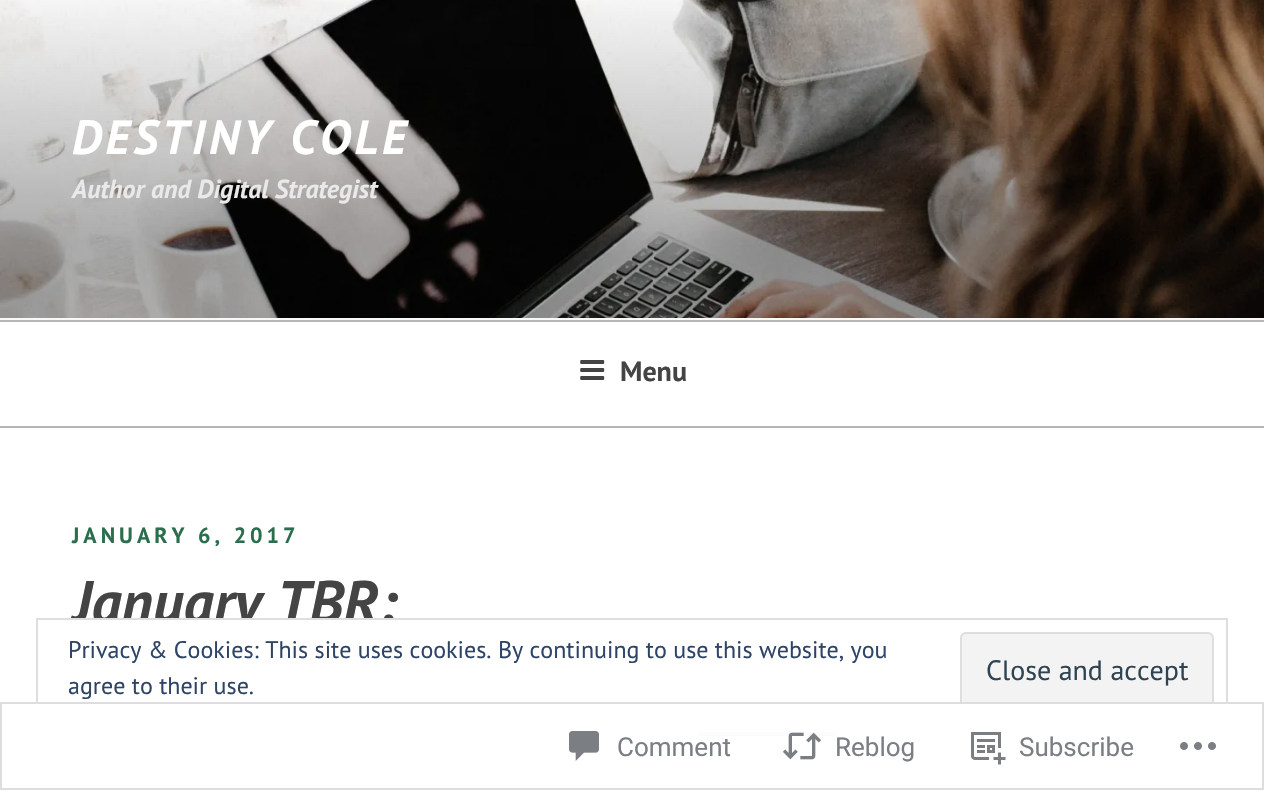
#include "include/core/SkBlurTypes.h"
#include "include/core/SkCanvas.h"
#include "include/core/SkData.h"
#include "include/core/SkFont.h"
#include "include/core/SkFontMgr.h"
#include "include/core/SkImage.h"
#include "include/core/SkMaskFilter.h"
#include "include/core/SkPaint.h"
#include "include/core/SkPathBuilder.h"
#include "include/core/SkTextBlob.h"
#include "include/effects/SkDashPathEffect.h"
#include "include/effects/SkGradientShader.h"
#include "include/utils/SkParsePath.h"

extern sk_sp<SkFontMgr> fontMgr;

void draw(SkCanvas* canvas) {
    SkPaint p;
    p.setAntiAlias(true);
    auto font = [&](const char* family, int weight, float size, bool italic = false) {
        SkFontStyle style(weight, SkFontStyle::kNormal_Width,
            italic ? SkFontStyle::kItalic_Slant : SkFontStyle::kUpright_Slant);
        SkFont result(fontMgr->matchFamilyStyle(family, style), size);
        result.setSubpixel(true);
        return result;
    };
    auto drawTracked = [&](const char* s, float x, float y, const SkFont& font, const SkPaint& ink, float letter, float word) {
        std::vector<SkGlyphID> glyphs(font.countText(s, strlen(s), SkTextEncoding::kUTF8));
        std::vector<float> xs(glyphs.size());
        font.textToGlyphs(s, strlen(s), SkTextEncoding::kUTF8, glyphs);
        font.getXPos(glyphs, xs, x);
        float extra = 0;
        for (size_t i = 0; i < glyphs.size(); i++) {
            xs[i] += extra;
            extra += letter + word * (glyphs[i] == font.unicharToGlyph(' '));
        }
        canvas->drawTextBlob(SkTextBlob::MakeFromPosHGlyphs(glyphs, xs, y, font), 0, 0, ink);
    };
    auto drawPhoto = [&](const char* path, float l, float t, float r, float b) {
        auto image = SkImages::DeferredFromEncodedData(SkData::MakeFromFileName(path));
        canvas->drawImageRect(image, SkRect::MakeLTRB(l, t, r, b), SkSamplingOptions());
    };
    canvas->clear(0xFFFFFFFF);
    p.setColor(0xFFF9F9F9);
    canvas->drawRect(SkRect::MakeLTRB(0, 318, 1264, 320), p);
    drawPhoto("media/1.png", 0, 0, 1264, 318);
    auto font1 = font("PT Sans", 700, 48, true);
    p.setColor(0xFFFFFFFF);
    drawTracked("DESTINY COLE", 72, 154, font1, p, 3.8f, 0);
    auto font2 = font("PT Sans", 700, 26, true);
    p.setColor(0xFFEAE9E9);
    canvas->drawString("Author and Digital Strategist", 72, 198, font2, p);
    p.setColor(0xFFB5B5B5);
    canvas->drawRect(SkRect::MakeLTRB(0, 320, 1264, 322), p);
    canvas->drawRect(SkRect::MakeLTRB(0, 426, 1264, 428), p);
    drawPhoto("media/2.png", 580, 360, 605, 380);
    auto font3 = font("PT Sans", 700, 28);
    p.setColor(0xFF444444);
    canvas->drawString("Menu", 620, 381, font3, p);
    auto font4 = font("PT Sans", 700, 22);
    p.setColor(0xFF2A6E4D);
    drawTracked("JANUARY 6, 2017", 72, 543, font4, p, 4, 0);
    auto font5 = font("PT Sans", 700, 60, true);
    p.setColor(0xFF444444);
    canvas->drawString("January TBR:", 72, 623, font5, p);
    p.setColor(0xFFFFFFFF);
    canvas->drawRect(SkRect::MakeLTRB(69, 620, 394, 636), p);
    p.setStyle(SkPaint::kStroke_Style);
    p.setStrokeWidth(2);
    p.setColor(0xFFDEDEDE);
    canvas->drawRect(SkRect::MakeLTRB(37, 619, 1227, 753), p);
    auto font6 = font("PT Sans", 400, 24);
    p.setStyle(SkPaint::kFill_Style);
    p.setColor(0xFF2E4467);
    canvas->drawString("Privacy & Cookies: This site uses cookies. By continuing to use this website, you", 68, 658, font6, p);
    p.setColor(0xFFF3F3F3);
    canvas->drawRoundRect(SkRect::MakeLTRB(961, 633, 1213, 709), 5, 5, p);
    p.setStyle(SkPaint::kStroke_Style);
    p.setColor(0xFFDEDEDE);
    canvas->drawRoundRect(SkRect::MakeLTRB(961, 633, 1213, 709), 5, 5, p);
    auto font7 = font("PT Sans", 400, 28);
    p.setStyle(SkPaint::kFill_Style);
    p.setColor(0xFF2E4453);
    canvas->drawString("Close and accept", 986, 680, font7, p);
    p.setColor(0xFF2E4467);
    canvas->drawString("agree to their use.", 68, 694, font6, p);
    canvas->drawRect(SkRect::MakeLTRB(698, 732, 836, 736), p);
    p.setColor(0xFAFFFFFF);
    canvas->drawRect(SkRect::MakeLTRB(36, 702, 1228, 754), p);
    p.setStyle(SkPaint::kStroke_Style);
    p.setColor(0xFADCDCDE);
    canvas->drawRect(SkRect::MakeLTRB(1, 703, 1263, 789), p);
    drawPhoto("media/3.png", 569, 731, 599, 761);
    auto font8 = font("Roboto", 400, 26);
    p.setStyle(SkPaint::kFill_Style);
    p.setColor(0xFF7B7F84);
    canvas->drawString("Comment", 617, 756, font8, p);
    drawPhoto("media/4.png", 782, 732, 822, 760);
    canvas->drawString("Reblog", 835, 756, font8, p);
    drawPhoto("media/5.png", 971, 732, 1006, 765);
    canvas->drawString("Subscribe", 1019, 756, font8, p);
    drawPhoto("media/6.png", 1180, 742, 1216, 750);
}
